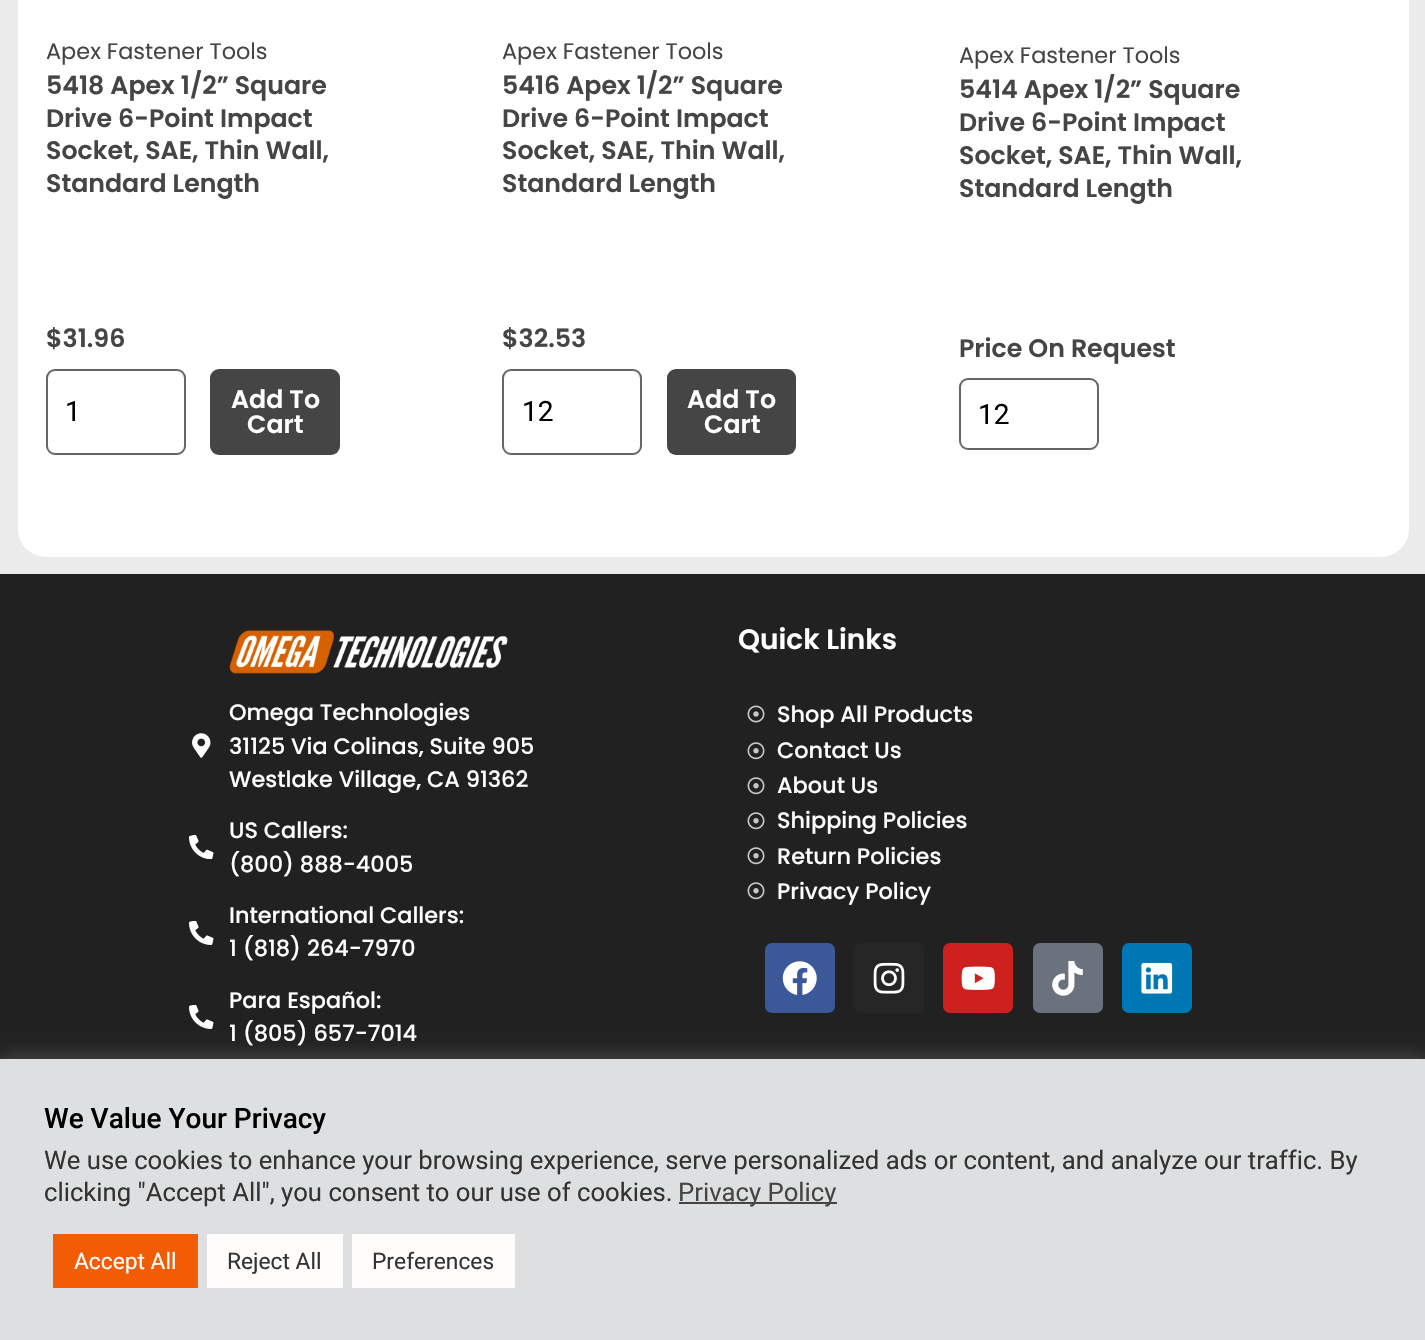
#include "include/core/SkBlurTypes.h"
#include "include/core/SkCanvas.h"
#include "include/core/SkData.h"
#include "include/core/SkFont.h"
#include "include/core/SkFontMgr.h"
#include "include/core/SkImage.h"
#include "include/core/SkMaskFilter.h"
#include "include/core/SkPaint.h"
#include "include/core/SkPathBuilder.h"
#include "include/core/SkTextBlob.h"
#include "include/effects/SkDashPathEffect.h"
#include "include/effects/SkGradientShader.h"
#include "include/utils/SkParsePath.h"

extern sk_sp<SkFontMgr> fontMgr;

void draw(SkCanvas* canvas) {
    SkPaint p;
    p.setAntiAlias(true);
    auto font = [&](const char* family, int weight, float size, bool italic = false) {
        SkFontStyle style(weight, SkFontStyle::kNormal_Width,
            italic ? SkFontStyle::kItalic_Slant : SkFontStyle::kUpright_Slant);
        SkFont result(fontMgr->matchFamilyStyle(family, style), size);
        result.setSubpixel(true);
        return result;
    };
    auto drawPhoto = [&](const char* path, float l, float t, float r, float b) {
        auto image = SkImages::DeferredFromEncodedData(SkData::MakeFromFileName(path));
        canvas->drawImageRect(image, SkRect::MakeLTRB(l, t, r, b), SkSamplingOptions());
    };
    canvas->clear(0xFFEBEBEB);
    p.setColor(0xFFFFFFFF);
    canvas->drawRoundRect(SkRect::MakeLTRB(18, -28, 1409, 557), 28, 28, p);
    auto font1 = font("Poppins", 400, 22.4f);
    p.setColor(0xFF454545);
    canvas->drawString("Apex Fastener Tools", 46, 59, font1, p);
    auto font2 = font("Poppins", 600, 25.25f);
    {
        const struct { const char* s; float x, y; } items[] = {
            {"5418 Apex 1/2” Square", 46, 94},
            {"Drive 6-Point Impact", 46, 127},
            {"Socket, SAE, Thin Wall,", 46, 159},
            {"Standard Length", 46, 192},
            {"$31.96", 46, 347},
        };
        for (auto [s, x, y] : items) {
            canvas->drawString(s, x, y, font2, p);
        }
    }
    p.setStyle(SkPaint::kStroke_Style);
    p.setStrokeWidth(2);
    p.setColor(0xFF666666);
    canvas->drawRoundRect(SkRect::MakeLTRB(47, 370, 185, 454), 8, 8, p);
    auto font3 = font("Roboto", 400, 28);
    p.setStyle(SkPaint::kFill_Style);
    p.setColor(0xFF000000);
    canvas->drawString("1", 65, 421, font3, p);
    p.setColor(0xFF454545);
    canvas->drawRoundRect(SkRect::MakeLTRB(210, 369, 340, 455), 9, 9, p);
    p.setColor(0xFFFFFFFF);
    canvas->drawString("Add To", 231, 408, font2, p);
    canvas->drawString("Cart", 247, 433, font2, p);
    p.setColor(0xFF454545);
    canvas->drawString("Apex Fastener Tools", 502, 59, font1, p);
    {
        const struct { const char* s; float x, y; } items[] = {
            {"5416 Apex 1/2” Square", 502, 94},
            {"Drive 6-Point Impact", 502, 127},
            {"Socket, SAE, Thin Wall,", 502, 159},
            {"Standard Length", 502, 192},
            {"$32.53", 502, 347},
        };
        for (auto [s, x, y] : items) {
            canvas->drawString(s, x, y, font2, p);
        }
    }
    p.setStyle(SkPaint::kStroke_Style);
    p.setColor(0xFF666666);
    canvas->drawRoundRect(SkRect::MakeLTRB(503, 370, 641, 454), 8, 8, p);
    p.setStyle(SkPaint::kFill_Style);
    p.setColor(0xFF000000);
    canvas->drawString("12", 522, 421, font3, p);
    p.setColor(0xFF454545);
    canvas->drawRoundRect(SkRect::MakeLTRB(667, 369, 796, 455), 9, 9, p);
    p.setColor(0xFFFFFFFF);
    canvas->drawString("Add To", 687, 408, font2, p);
    canvas->drawString("Cart", 704, 433, font2, p);
    p.setColor(0xFF454545);
    canvas->drawString("Apex Fastener Tools", 959, 63, font1, p);
    {
        const struct { const char* s; float x, y; } items[] = {
            {"5414 Apex 1/2” Square", 959, 98},
            {"Drive 6-Point Impact", 959, 131},
            {"Socket, SAE, Thin Wall,", 959, 164},
            {"Standard Length", 959, 197},
            {"Price On Request", 959, 357},
        };
        for (auto [s, x, y] : items) {
            canvas->drawString(s, x, y, font2, p);
        }
    }
    p.setStyle(SkPaint::kStroke_Style);
    p.setColor(0xFF666666);
    canvas->drawRoundRect(SkRect::MakeLTRB(960, 379, 1098, 449), 8, 8, p);
    p.setStyle(SkPaint::kFill_Style);
    p.setColor(0xFF000000);
    canvas->drawString("12", 978, 424, font3, p);
    p.setColor(0xFF212121);
    canvas->drawRect(SkRect::MakeLTRB(0, 574, 1425, 1059), p);
    drawPhoto("media/1.png", 229, 630, 508, 674);
    drawPhoto("media/2.png", 192, 733, 211, 758);
    auto font4 = font("Poppins", 500, 22.4f);
    p.setColor(0xFFFFFFFF);
    {
        const struct { const char* s; float x, y; } items[] = {
            {"Omega Technologies", 229, 720},
            {"31125 Via Colinas, Suite 905", 229, 754},
            {"Westlake Village, CA 91362", 229, 787},
        };
        for (auto [s, x, y] : items) {
            canvas->drawString(s, x, y, font4, p);
        }
    }
    drawPhoto("media/3.png", 189, 835, 214, 859);
    canvas->drawString("US Callers:", 229, 838, font4, p);
    canvas->drawString("(800) 888-4005", 229, 872, font4, p);
    drawPhoto("media/4.png", 189, 921, 214, 945);
    canvas->drawString("International Callers:", 229, 923, font4, p);
    canvas->drawString("1 (818) 264-7970", 229, 956, font4, p);
    drawPhoto("media/4.png", 189, 1005, 214, 1029);
    canvas->drawString("Para Español:", 229, 1008, font4, p);
    canvas->drawString("1 (805) 657-7014", 229, 1041, font4, p);
    auto font5 = font("Poppins", 600, 28);
    canvas->drawString("Quick Links", 738, 649, font5, p);
    drawPhoto("media/5.png", 747, 705, 765, 723);
    canvas->drawString("Shop All Products", 777, 722, font4, p);
    drawPhoto("media/6.png", 747, 742, 765, 760);
    canvas->drawString("Contact Us", 777, 758, font4, p);
    drawPhoto("media/6.png", 747, 777, 765, 795);
    canvas->drawString("About Us", 777, 793, font4, p);
    drawPhoto("media/6.png", 747, 812, 765, 830);
    canvas->drawString("Shipping Policies", 777, 828, font4, p);
    drawPhoto("media/6.png", 747, 847, 765, 865);
    canvas->drawString("Return Policies", 777, 864, font4, p);
    drawPhoto("media/6.png", 747, 882, 765, 900);
    canvas->drawString("Privacy Policy", 777, 899, font4, p);
    p.setColor(0xFF3B5998);
    canvas->drawRoundRect(SkRect::MakeLTRB(765, 943, 835, 1013), 7, 7, p);
    drawPhoto("media/7.png", 782, 961, 817, 995);
    p.setColor(0xFF262626);
    canvas->drawRoundRect(SkRect::MakeLTRB(854, 943, 924, 1013), 7, 7, p);
    drawPhoto("media/8.png", 873, 962, 905, 994);
    p.setColor(0xFFCD201F);
    canvas->drawRoundRect(SkRect::MakeLTRB(943, 943, 1013, 1013), 7, 7, p);
    drawPhoto("media/9.png", 961, 966, 995, 990);
    p.setColor(0xFF69727D);
    canvas->drawRoundRect(SkRect::MakeLTRB(1033, 943, 1103, 1013), 7, 7, p);
    drawPhoto("media/10.png", 1052, 961, 1083, 996);
    p.setColor(0xFF0077B5);
    canvas->drawRoundRect(SkRect::MakeLTRB(1122, 943, 1192, 1013), 7, 7, p);
    drawPhoto("media/11.png", 1141, 962, 1173, 994);
    p.setColor(0x4DACABAB);
    p.setMaskFilter(SkMaskFilter::MakeBlur(kNormal_SkBlurStyle, 9));
    canvas->drawRect(SkRect::MakeLTRB(0, 1057, 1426, 1339), p);
    p.setMaskFilter(nullptr);
    p.setColor(0xFFDEDFE0);
    canvas->drawRect(SkRect::MakeLTRB(0, 1059, 1425, 1340), p);
    auto font6 = font("Roboto", 500, 28);
    p.setColor(0xFF000000);
    canvas->drawString("We Value Your Privacy", 44, 1128, font6, p);
    auto font7 = font("Roboto", 400, 25.67f);
    p.setColor(0xFF333333);
    canvas->drawString("We use cookies to enhance your browsing experience, serve personalized ads or content, and analyze our traffic. By", 44, 1169, font7, p);
    canvas->drawString("clicking \"Accept All\", you consent to our use of cookies.", 44, 1201, font7, p);
    p.setColor(0xFF444444);
    canvas->drawRect(SkRect::MakeLTRB(679, 1202, 837, 1204), p);
    p.setColor(0xFF454545);
    canvas->drawString("Privacy Policy", 678, 1201, font7, p);
    p.setColor(0xFFF25C05);
    canvas->drawRect(SkRect::MakeLTRB(53, 1234, 198, 1288), p);
    auto font8 = font("Roboto", 400, 22.75f);
    p.setColor(0xFFFFFFFF);
    canvas->drawString("Accept All", 74, 1269, font8, p);
    p.setColor(0xFFFFFCFC);
    canvas->drawRect(SkRect::MakeLTRB(207, 1234, 343, 1288), p);
    p.setColor(0xFF333333);
    canvas->drawString("Reject All", 227, 1269, font8, p);
    p.setColor(0xFFFFFCFC);
    canvas->drawRect(SkRect::MakeLTRB(352, 1234, 515, 1288), p);
    p.setColor(0xFF333333);
    canvas->drawString("Preferences", 372, 1269, font8, p);
}
